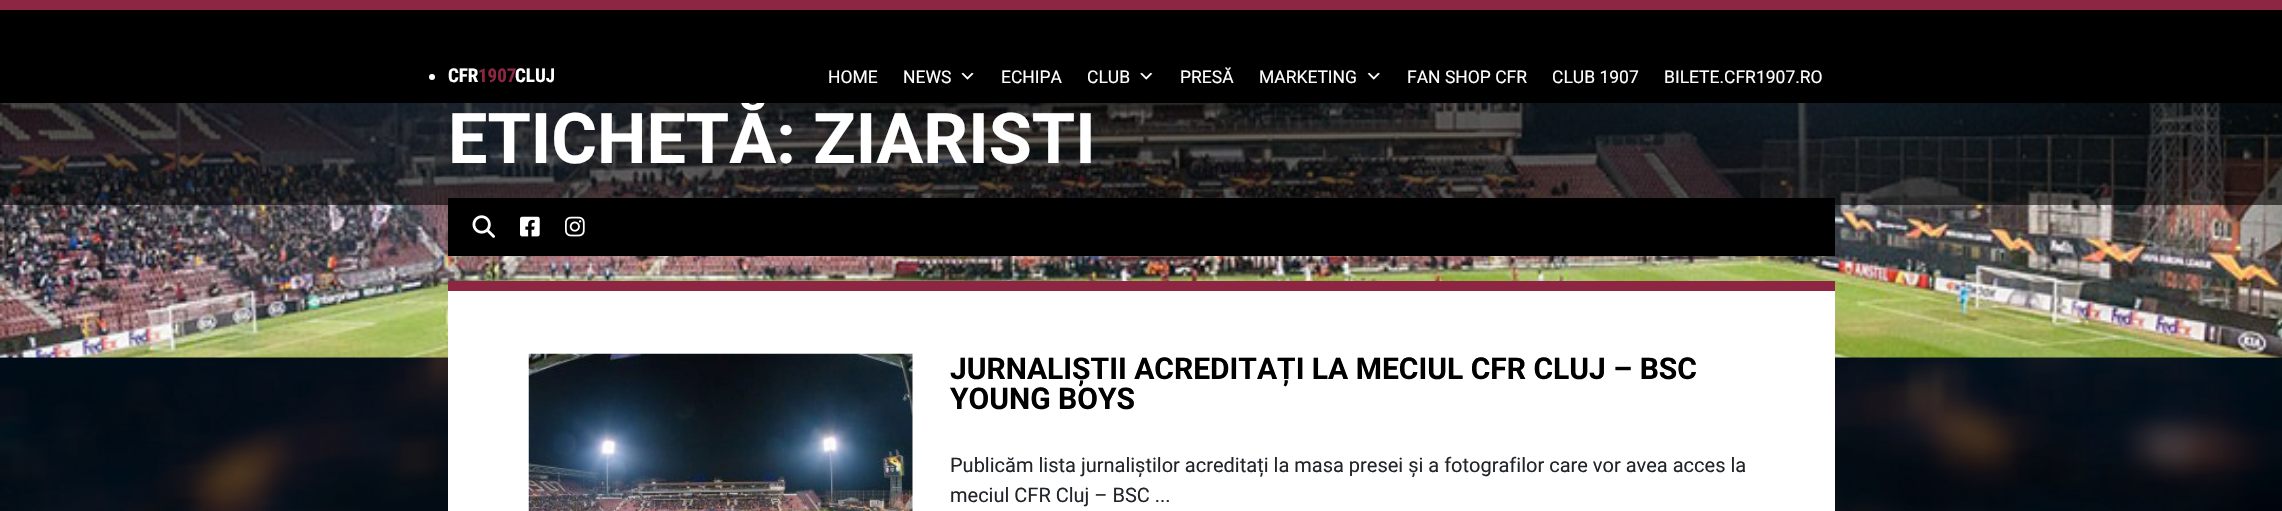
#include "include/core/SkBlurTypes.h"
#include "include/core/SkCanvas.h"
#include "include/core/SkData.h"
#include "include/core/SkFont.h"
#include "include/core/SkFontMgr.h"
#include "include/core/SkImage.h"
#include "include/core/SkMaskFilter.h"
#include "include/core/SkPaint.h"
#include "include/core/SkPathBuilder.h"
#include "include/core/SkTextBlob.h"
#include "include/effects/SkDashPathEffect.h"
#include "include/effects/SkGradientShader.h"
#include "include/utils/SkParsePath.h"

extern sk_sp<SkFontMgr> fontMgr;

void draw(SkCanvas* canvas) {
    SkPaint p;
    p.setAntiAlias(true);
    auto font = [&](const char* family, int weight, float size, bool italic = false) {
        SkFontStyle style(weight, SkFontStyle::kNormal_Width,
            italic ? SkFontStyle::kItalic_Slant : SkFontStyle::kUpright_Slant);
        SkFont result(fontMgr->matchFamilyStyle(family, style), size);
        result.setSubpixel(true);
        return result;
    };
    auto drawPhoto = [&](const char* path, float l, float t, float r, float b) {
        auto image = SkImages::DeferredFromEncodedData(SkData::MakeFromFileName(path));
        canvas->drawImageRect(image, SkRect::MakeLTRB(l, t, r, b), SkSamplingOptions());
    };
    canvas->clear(0xFFFFFFFF);
    drawPhoto("media/1.png", 0, 357, 2282, 511);
    p.setColor(0xFF8D2642);
    canvas->drawRect(SkRect::MakeLTRB(0, 0, 2282, 10), p);
    drawPhoto("media/8.png", 0, 103, 2282, 358);
    p.setColor(0xFF000000);
    canvas->drawRect(SkRect::MakeLTRB(448, 198, 1835, 256), p);
    p.setColor(0x99000000);
    canvas->drawRect(SkRect::MakeLTRB(0, 103, 2282, 205), p);
    auto font1 = font("Roboto", 700, 70);
    p.setColor(0xFFFFFFFF);
    canvas->drawString("ETICHETĂ: ZIARISTI", 448, 163, font1, p);
    p.setColor(0xFF000000);
    canvas->drawRect(SkRect::MakeLTRB(0, 10, 2282, 103), p);
    p.setColor(0xFFFFFFFF);
    canvas->drawCircle(432, 77, 3, p);
    auto font2 = font("Roboto Condensed", 700, 19);
    canvas->drawString("CFR", 448, 82, font2, p);
    p.setColor(0xFF8D2642);
    canvas->drawString("1907", 478, 82, font2, p);
    p.setColor(0xFFFFFFFF);
    canvas->drawString("CLUJ", 515, 82, font2, p);
    auto font3 = font("Roboto", 400, 17.5f);
    canvas->drawString("HOME", 828, 83, font3, p);
    canvas->drawString("NEWS", 903, 83, font3, p);
    drawPhoto("media/2.png", 961, 72, 974, 80);
    canvas->drawString("ECHIPA", 1001, 83, font3, p);
    canvas->drawString("CLUB", 1087, 83, font3, p);
    drawPhoto("media/3.png", 1140, 72, 1153, 80);
    canvas->drawString("PRESĂ", 1180, 83, font3, p);
    canvas->drawString("MARKETING", 1259, 83, font3, p);
    drawPhoto("media/4.png", 1367, 72, 1380, 80);
    {
        const struct { const char* s; float x, y; } items[] = {
            {"FAN SHOP CFR", 1407, 83},
            {"CLUB 1907", 1552, 83},
            {"BILETE.CFR1907.RO", 1664, 83},
        };
        for (auto [s, x, y] : items) {
            canvas->drawString(s, x, y, font3, p);
        }
    }
    drawPhoto("media/5.png", 472, 215, 495, 238);
    drawPhoto("media/6.png", 520, 216, 540, 237);
    drawPhoto("media/7.png", 565, 216, 585, 237);
    canvas->drawRect(SkRect::MakeLTRB(448, 291, 1835, 511), p);
    p.setColor(0xFF8D2642);
    canvas->drawRect(SkRect::MakeLTRB(448, 281, 1835, 291), p);
    drawPhoto("media/9.png", 528, 353, 913, 511);
    auto font4 = font("Roboto", 700, 30);
    p.setColor(0xFF000000);
    canvas->drawString("JURNALIȘTII ACREDITAȚI LA MECIUL CFR CLUJ – BSC", 950, 379, font4, p);
    canvas->drawString("YOUNG BOYS", 950, 409, font4, p);
    auto font5 = font("Roboto", 400, 20);
    p.setColor(0xFF212529);
    canvas->drawString("Publicăm lista jurnaliștilor acreditați la masa presei și a fotografilor care vor avea acces la", 950, 472, font5, p);
    canvas->drawString("meciul CFR Cluj – BSC ...", 950, 502, font5, p);
}
